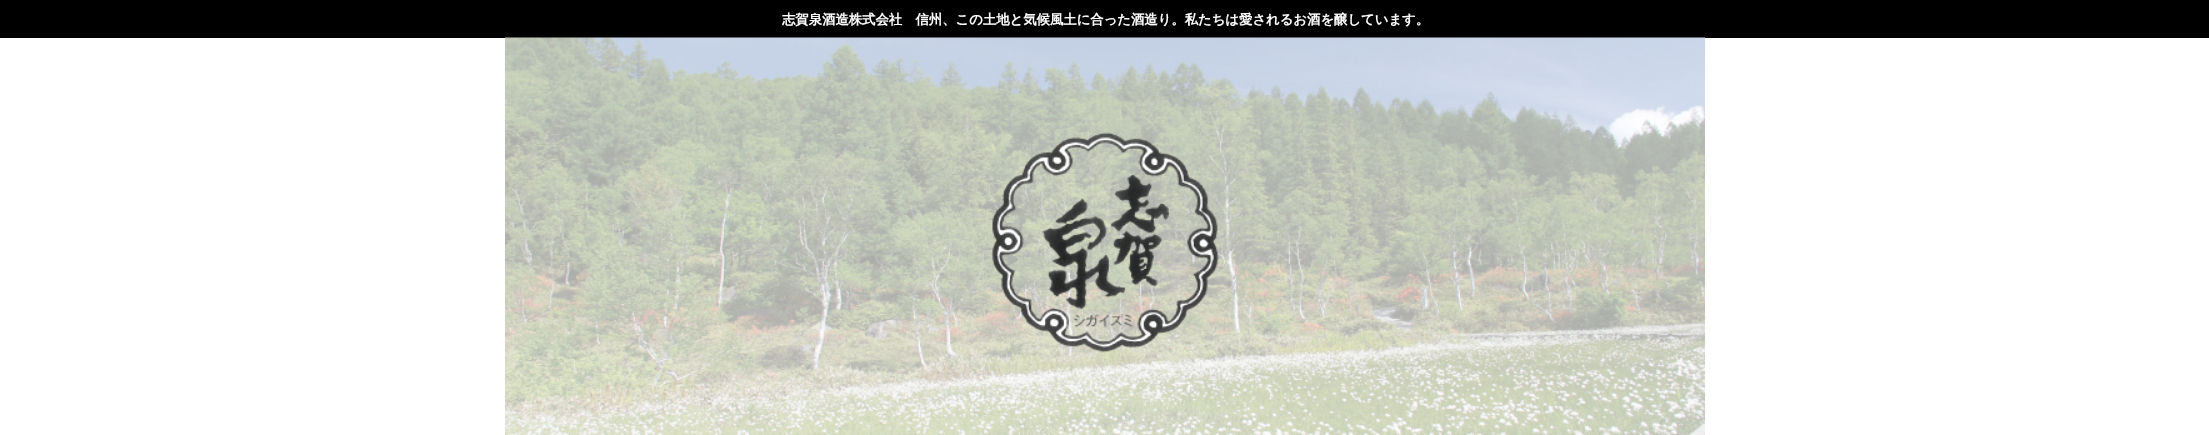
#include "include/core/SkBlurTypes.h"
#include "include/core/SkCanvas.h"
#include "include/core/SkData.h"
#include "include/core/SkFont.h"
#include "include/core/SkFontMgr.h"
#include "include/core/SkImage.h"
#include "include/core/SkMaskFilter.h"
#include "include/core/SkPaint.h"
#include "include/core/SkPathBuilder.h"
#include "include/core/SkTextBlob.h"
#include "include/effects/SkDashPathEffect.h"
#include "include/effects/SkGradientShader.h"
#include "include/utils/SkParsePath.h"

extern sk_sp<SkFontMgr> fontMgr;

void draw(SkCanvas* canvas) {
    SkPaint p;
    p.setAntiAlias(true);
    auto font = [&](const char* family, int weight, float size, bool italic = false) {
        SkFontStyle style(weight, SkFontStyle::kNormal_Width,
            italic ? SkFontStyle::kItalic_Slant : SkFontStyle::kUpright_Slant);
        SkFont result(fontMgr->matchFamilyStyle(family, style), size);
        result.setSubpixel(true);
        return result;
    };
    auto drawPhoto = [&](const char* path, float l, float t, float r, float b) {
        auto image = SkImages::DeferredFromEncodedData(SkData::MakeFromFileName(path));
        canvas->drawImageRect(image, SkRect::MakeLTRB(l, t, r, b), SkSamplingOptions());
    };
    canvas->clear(0xFFFFFFFF);
    p.setColor(0xFF000000);
    canvas->drawRect(SkRect::MakeLTRB(0, 0, 2209, 38), p);
    auto font1 = font("WenQuanYi Zen Hei", 700, 13.35f);
    p.setColor(0xFFFFFFFF);
    canvas->drawString("志賀泉酒造株式会社　信州、この土地と気候風土に合った酒造り。私たちは愛されるお酒を醸しています。", 782, 24, font1, p);
    drawPhoto("media/1.png", 505, 37, 1705, 435);
}
